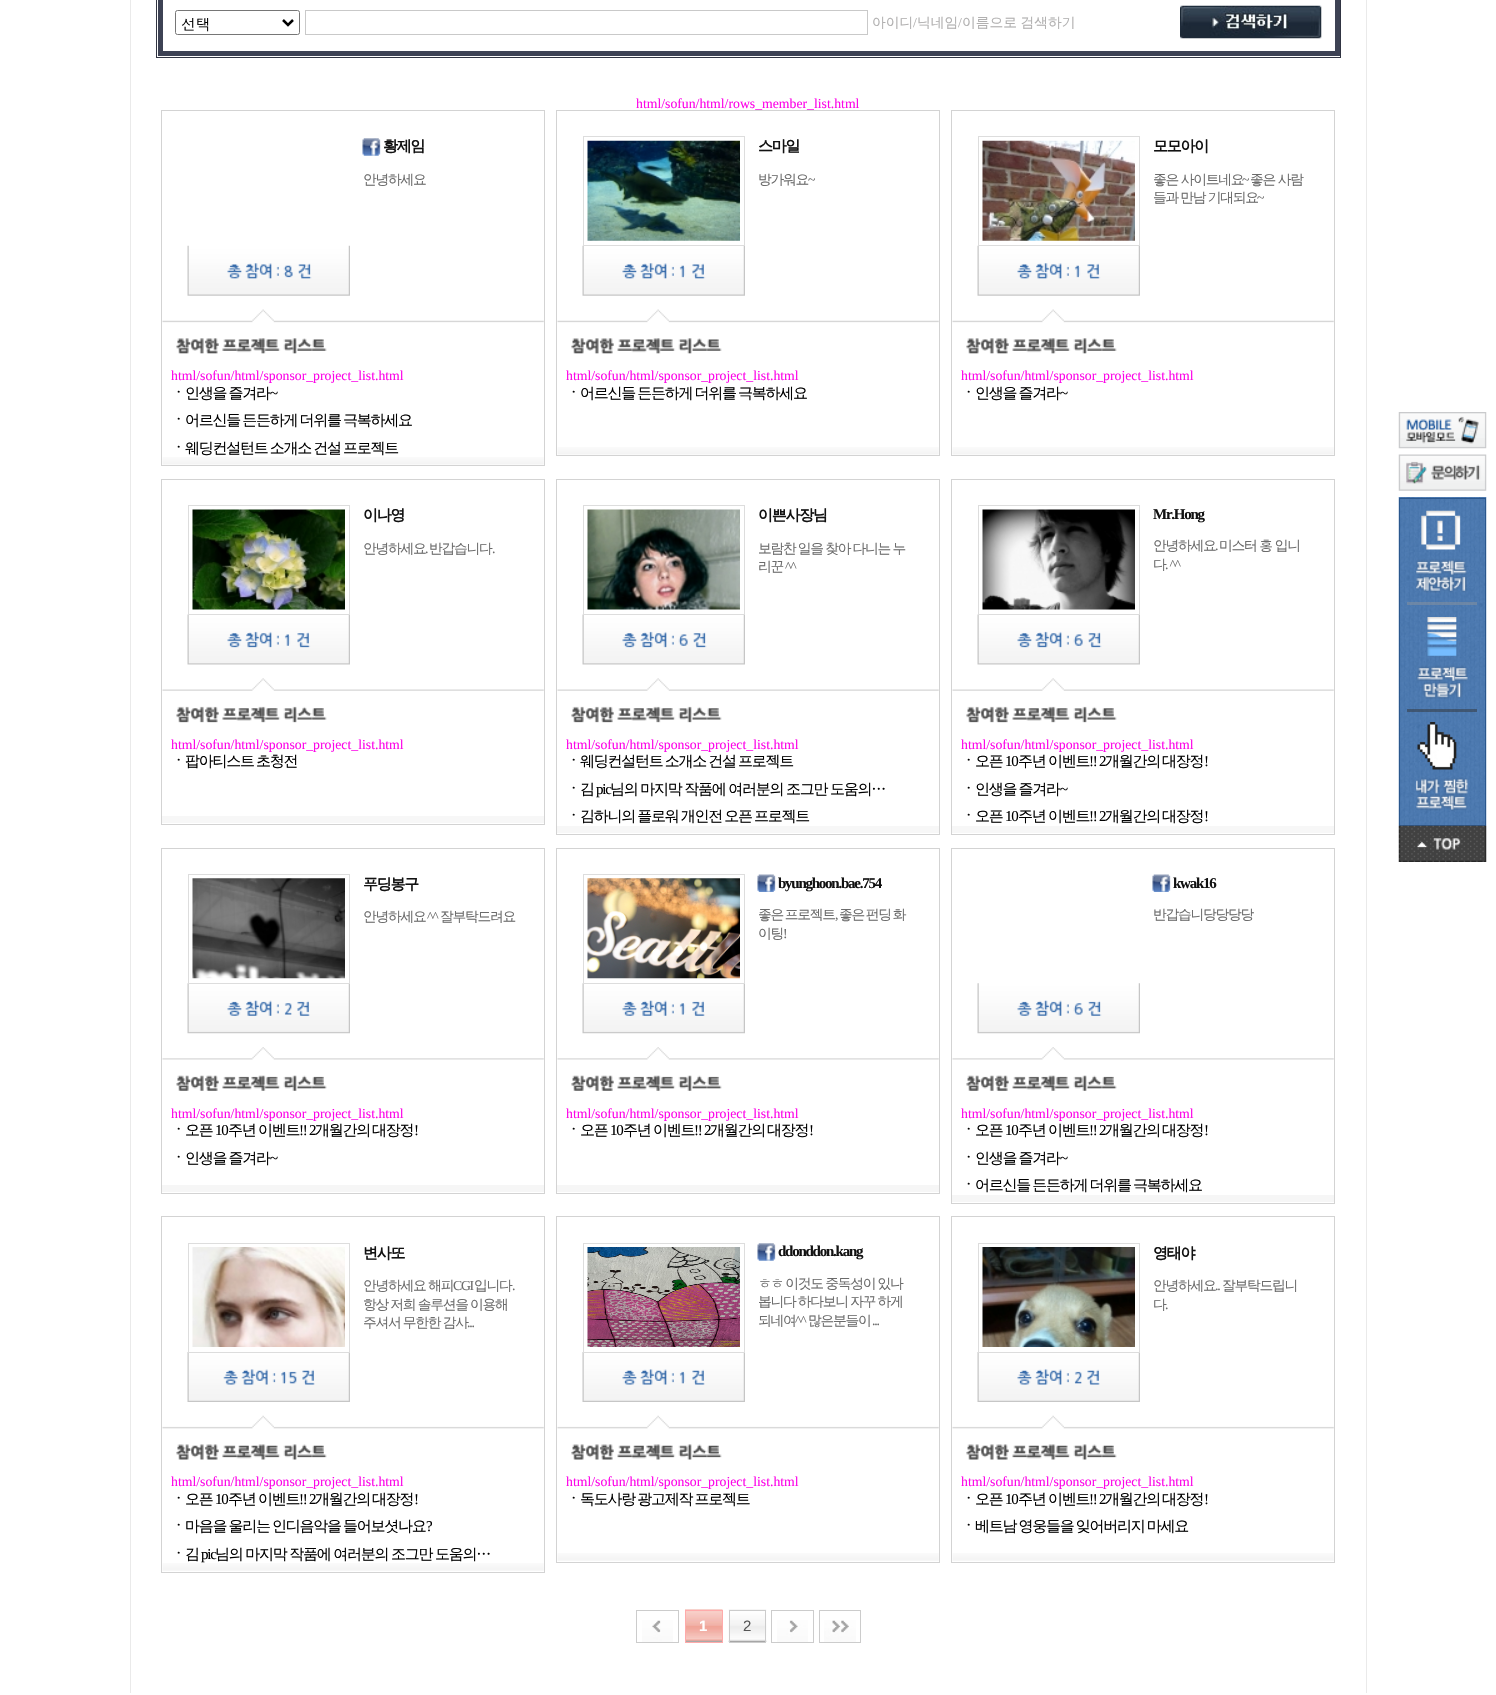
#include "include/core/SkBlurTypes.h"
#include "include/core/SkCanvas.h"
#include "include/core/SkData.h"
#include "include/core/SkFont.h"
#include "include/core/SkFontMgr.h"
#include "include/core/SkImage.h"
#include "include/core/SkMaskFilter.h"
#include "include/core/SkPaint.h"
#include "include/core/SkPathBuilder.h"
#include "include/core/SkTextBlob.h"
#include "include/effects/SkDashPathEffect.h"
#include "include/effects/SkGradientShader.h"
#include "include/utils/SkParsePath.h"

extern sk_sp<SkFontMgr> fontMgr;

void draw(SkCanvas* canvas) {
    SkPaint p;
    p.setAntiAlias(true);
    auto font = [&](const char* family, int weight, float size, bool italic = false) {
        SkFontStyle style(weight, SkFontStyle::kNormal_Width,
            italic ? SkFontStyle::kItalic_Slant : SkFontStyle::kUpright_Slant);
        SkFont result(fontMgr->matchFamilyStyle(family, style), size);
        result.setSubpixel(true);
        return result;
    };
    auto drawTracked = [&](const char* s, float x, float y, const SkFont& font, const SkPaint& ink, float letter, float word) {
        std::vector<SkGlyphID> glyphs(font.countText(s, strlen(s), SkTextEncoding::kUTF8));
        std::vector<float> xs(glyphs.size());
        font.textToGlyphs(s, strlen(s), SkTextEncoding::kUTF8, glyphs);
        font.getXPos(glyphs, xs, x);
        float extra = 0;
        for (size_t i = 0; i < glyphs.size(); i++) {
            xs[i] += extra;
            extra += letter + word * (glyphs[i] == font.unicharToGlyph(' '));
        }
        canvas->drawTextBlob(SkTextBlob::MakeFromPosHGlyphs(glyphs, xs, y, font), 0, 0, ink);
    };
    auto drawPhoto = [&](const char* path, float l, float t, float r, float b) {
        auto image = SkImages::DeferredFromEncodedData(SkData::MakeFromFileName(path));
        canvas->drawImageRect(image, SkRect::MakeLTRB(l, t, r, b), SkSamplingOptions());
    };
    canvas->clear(0xFFFFFFFF);
    p.setColor(0xFFEAEAEA);
    canvas->drawRect(SkRect::MakeLTRB(1366, 0, 1367, 1693), p);
    canvas->drawRect(SkRect::MakeLTRB(130, 0, 131, 1693), p);
    p.setStyle(SkPaint::kStroke_Style);
    p.setStrokeWidth(1);
    p.setColor(0xFF303442);
    canvas->drawRect(SkRect::MakeLTRB(156.5f, -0.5f, 1340.5f, 57.5f), p);
    p.setStrokeWidth(5);
    p.setColor(0xFF3D4254);
    canvas->drawRect(SkRect::MakeLTRB(160.5f, -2.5f, 1337.5f, 53.5f), p);
    p.setStrokeWidth(1);
    p.setColor(0xFF767676);
    canvas->drawRoundRect(SkRect::MakeLTRB(175.5f, 10.5f, 299.5f, 34.5f), 2, 2, p);
    p.setStrokeWidth(2.5f);
    p.setColor(0xFF000000);
    canvas->drawPath(SkPathBuilder().moveTo(283, 20).lineTo(288, 25).lineTo(293, 20).detach(), p);
    auto font1 = font("Dotum", 400, 15);
    p.setStyle(SkPaint::kFill_Style);
    canvas->drawString("선택", 181, 30, font1, p);
    p.setStyle(SkPaint::kStroke_Style);
    p.setStrokeWidth(1);
    p.setColor(0xFFC9C9C9);
    canvas->drawRect(SkRect::MakeLTRB(305.5f, 10.5f, 867.5f, 34.5f), p);
    auto font2 = font("WenQuanYi Zen Hei", 500, 13.75f);
    p.setStyle(SkPaint::kFill_Style);
    p.setColor(0xFFB1B0B0);
    canvas->drawString("아이디", 872, 27, font2, p);
    auto font3 = font("Liberation Serif", 400, 13.75f);
    canvas->drawString("/", 913, 27, font3, p);
    canvas->drawString("닉네임", 917, 27, font2, p);
    canvas->drawString("/", 958, 27, font3, p);
    drawTracked("이름으로 검색하기", 962, 27, font2, p, 0, -0.5f);
    drawPhoto("media/1.png", 1180, 5, 1322, 39);
    p.setColor(0xFFFD03E8);
    canvas->drawString("html/sofun/html/rows_member_list.html", 636, 108, font3, p);
    p.setStyle(SkPaint::kStroke_Style);
    p.setColor(0xFFD3D3D3);
    canvas->drawRect(SkRect::MakeLTRB(161.5f, 110.5f, 544.5f, 465.5f), p);
    drawPhoto("media/2.png", 362, 138, 381, 156);
    auto font4 = font("WenQuanYi Zen Hei", 700, 15);
    p.setStyle(SkPaint::kFill_Style);
    p.setColor(0xFF121212);
    drawTracked("황제임", 383, 151, font4, p, -1.25f, 0);
    p.setColor(0xFF6B6B6B);
    drawTracked("안녕하세요", 363, 184, font2, p, -1.25f, 0);
    drawPhoto("media/3.png", 187, 245, 350, 296);
    drawPhoto("media/4.png", 227, 263, 312, 279);
    drawPhoto("media/5.png", 162, 457, 544, 465);
    drawPhoto("media/6.png", 162, 309, 544, 323);
    drawPhoto("media/7.png", 176, 338, 327, 354);
    p.setColor(0xFFFD03E8);
    canvas->drawString("html/sofun/html/sponsor_project_list.html", 171, 380, font3, p);
    p.setColor(0xFF000000);
    drawTracked("ㆍ", 171, 398, font4, p, -1.25f, 0);
    auto font5 = font("WenQuanYi Zen Hei", 500, 15);
    drawTracked("인생을 즐겨라", 185, 398, font5, p, -1.25f, -1);
    auto font6 = font("Liberation Serif", 400, 15);
    drawTracked("~", 270, 398, font6, p, -1.25f, 0);
    drawTracked("ㆍ", 171, 425, font4, p, -1.25f, 0);
    drawTracked("어르신들 든든하게 더위를 극복하세요", 185, 425, font5, p, -1.25f, -1);
    drawTracked("ㆍ", 171, 453, font4, p, -1.25f, 0);
    drawTracked("웨딩컨설턴트 소개소 건설 프로젝트", 185, 453, font5, p, -1.25f, -1);
    p.setStyle(SkPaint::kStroke_Style);
    p.setColor(0xFFD3D3D3);
    canvas->drawRect(SkRect::MakeLTRB(556.5f, 110.5f, 939.5f, 455.5f), p);
    drawPhoto("media/3.png", 582, 245, 745, 296);
    p.setColor(0xFFDDDDDD);
    canvas->drawRect(SkRect::MakeLTRB(583.5f, 136.5f, 744.5f, 245.5f), p);
    drawPhoto("media/8.png", 587, 140, 740, 241);
    drawPhoto("media/9.png", 622, 263, 706, 279);
    p.setStyle(SkPaint::kFill_Style);
    p.setColor(0xFF121212);
    drawTracked("스마일", 758, 151, font4, p, -1.25f, 0);
    p.setColor(0xFF6B6B6B);
    drawTracked("방가워요", 758, 184, font2, p, -1.25f, 0);
    drawTracked("~", 808, 184, font3, p, -1.25f, 0);
    drawPhoto("media/5.png", 557, 447, 939, 455);
    drawPhoto("media/6.png", 557, 309, 939, 323);
    drawPhoto("media/10.png", 571, 338, 722, 354);
    p.setColor(0xFFFD03E8);
    canvas->drawString("html/sofun/html/sponsor_project_list.html", 566, 380, font3, p);
    p.setColor(0xFF000000);
    drawTracked("ㆍ", 566, 398, font4, p, -1.25f, 0);
    drawTracked("어르신들 든든하게 더위를 극복하세요", 580, 398, font5, p, -1.25f, -1);
    p.setStyle(SkPaint::kStroke_Style);
    p.setColor(0xFFD3D3D3);
    canvas->drawRect(SkRect::MakeLTRB(951.5f, 110.5f, 1334.5f, 455.5f), p);
    drawPhoto("media/3.png", 977, 245, 1140, 296);
    p.setColor(0xFFDDDDDD);
    canvas->drawRect(SkRect::MakeLTRB(978.5f, 136.5f, 1139.5f, 245.5f), p);
    drawPhoto("media/11.png", 982, 140, 1135, 241);
    drawPhoto("media/9.png", 1017, 263, 1101, 279);
    p.setStyle(SkPaint::kFill_Style);
    p.setColor(0xFF121212);
    drawTracked("모모아이", 1153, 151, font4, p, -1.25f, 0);
    p.setColor(0xFF6B6B6B);
    drawTracked("좋은 사이트네요", 1153, 184, font2, p, -1.25f, 0);
    drawTracked("~", 1242, 184, font3, p, -1.25f, 0);
    drawTracked("좋은 사람", 1250, 184, font2, p, -1.25f, 0);
    drawTracked("들과 만남 기대되요", 1153, 202, font2, p, -1.25f, -0.5f);
    drawTracked("~", 1257, 202, font3, p, -1.25f, 0);
    drawPhoto("media/5.png", 952, 447, 1334, 455);
    drawPhoto("media/6.png", 952, 309, 1334, 323);
    drawPhoto("media/12.png", 966, 338, 1117, 354);
    p.setColor(0xFFFD03E8);
    canvas->drawString("html/sofun/html/sponsor_project_list.html", 961, 380, font3, p);
    p.setColor(0xFF000000);
    drawTracked("ㆍ", 961, 398, font4, p, -1.25f, 0);
    drawTracked("인생을 즐겨라", 975, 398, font5, p, -1.25f, -1);
    drawTracked("~", 1060, 398, font6, p, -1.25f, 0);
    p.setStyle(SkPaint::kStroke_Style);
    p.setColor(0xFFD3D3D3);
    canvas->drawRect(SkRect::MakeLTRB(161.5f, 479.5f, 544.5f, 824.5f), p);
    drawPhoto("media/14.png", 187, 614, 350, 665);
    p.setColor(0xFFDDDDDD);
    canvas->drawRect(SkRect::MakeLTRB(188.5f, 505.5f, 349.5f, 614.5f), p);
    drawPhoto("media/13.png", 192, 509, 345, 610);
    drawPhoto("media/15.png", 227, 631, 311, 648);
    p.setStyle(SkPaint::kFill_Style);
    p.setColor(0xFF121212);
    drawTracked("이나영", 363, 520, font4, p, -1.25f, 0);
    p.setColor(0xFF6B6B6B);
    drawTracked("안녕하세요", 363, 553, font2, p, -1.25f, 0);
    drawTracked(".", 425, 553, font3, p, -1.25f, 0);
    drawTracked("반갑습니다", 429, 553, font2, p, -1.25f, 0);
    drawTracked(".", 492, 553, font3, p, -1.25f, 0);
    p.setColor(0xFFF7F7F7);
    canvas->drawRect(SkRect::MakeLTRB(162, 816, 544, 823), p);
    drawPhoto("media/16.png", 162, 678, 544, 691);
    drawPhoto("media/17.png", 176, 706, 327, 723);
    p.setColor(0xFFFD03E8);
    canvas->drawString("html/sofun/html/sponsor_project_list.html", 171, 749, font3, p);
    p.setColor(0xFF000000);
    drawTracked("ㆍ", 171, 766, font4, p, -1.25f, 0);
    drawTracked("팝아티스트", 185, 766, font5, p, -1.25f, 0);
    drawTracked("초청전", 256, 766, font5, p, -1.25f, 0);
    p.setStyle(SkPaint::kStroke_Style);
    p.setColor(0xFFD3D3D3);
    canvas->drawRect(SkRect::MakeLTRB(556.5f, 479.5f, 939.5f, 834.5f), p);
    drawPhoto("media/14.png", 582, 614, 745, 665);
    p.setColor(0xFFDDDDDD);
    canvas->drawRect(SkRect::MakeLTRB(583.5f, 505.5f, 744.5f, 614.5f), p);
    drawPhoto("media/18.png", 587, 509, 740, 610);
    drawPhoto("media/19.png", 622, 631, 707, 648);
    p.setStyle(SkPaint::kFill_Style);
    p.setColor(0xFF121212);
    drawTracked("이쁜사장님", 758, 520, font4, p, -1.25f, 0);
    p.setColor(0xFF6B6B6B);
    drawTracked("보람찬 일을 찾아 다니는 누", 758, 553, font2, p, -1.25f, -0.5f);
    drawTracked("리꾼", 758, 571, font2, p, -1.25f, 0);
    drawTracked("^^", 785, 571, font3, p, -1.25f, 0);
    p.setColor(0xFFF7F7F7);
    canvas->drawRect(SkRect::MakeLTRB(557, 826, 939, 833), p);
    drawPhoto("media/16.png", 557, 678, 939, 691);
    drawPhoto("media/20.png", 571, 706, 722, 723);
    p.setColor(0xFFFD03E8);
    canvas->drawString("html/sofun/html/sponsor_project_list.html", 566, 749, font3, p);
    p.setColor(0xFF000000);
    drawTracked("ㆍ", 566, 766, font4, p, -1.25f, 0);
    drawTracked("웨딩컨설턴트 소개소 건설 프로젝트", 580, 766, font5, p, -1.25f, -1);
    drawTracked("ㆍ", 566, 794, font4, p, -1.25f, 0);
    drawTracked("김", 580, 794, font5, p, -1.25f, 0);
    drawTracked("pic", 596, 794, font6, p, -1.25f, 0);
    drawTracked("님의 마지막 작품에 여러분의 조그만 도움의…", 610, 794, font5, p, -1.25f, -0.5f);
    drawTracked("ㆍ", 566, 821, font4, p, -1.25f, 0);
    drawTracked("김하니의 플로워 개인전 오픈 프로젝트", 580, 821, font5, p, -1.25f, -1);
    p.setStyle(SkPaint::kStroke_Style);
    p.setColor(0xFFD3D3D3);
    canvas->drawRect(SkRect::MakeLTRB(951.5f, 479.5f, 1334.5f, 834.5f), p);
    drawPhoto("media/14.png", 977, 614, 1140, 665);
    p.setColor(0xFFDDDDDD);
    canvas->drawRect(SkRect::MakeLTRB(978.5f, 505.5f, 1139.5f, 614.5f), p);
    drawPhoto("media/21.png", 982, 509, 1135, 610);
    drawPhoto("media/19.png", 1017, 631, 1102, 648);
    auto font7 = font("Liberation Serif", 700, 15);
    p.setStyle(SkPaint::kFill_Style);
    p.setColor(0xFF121212);
    drawTracked("Mr.Hong", 1153, 519, font7, p, -1.25f, 0);
    p.setColor(0xFF6B6B6B);
    drawTracked("안녕하세요", 1153, 550, font2, p, -1.25f, 0);
    drawTracked(".", 1215, 550, font3, p, -1.25f, 0);
    drawTracked("미스터 홍 입니", 1219, 550, font2, p, -1.25f, 0);
    drawTracked("다", 1153, 569, font2, p, -1.25f, 0);
    drawTracked(". ^^", 1165, 569, font3, p, -1.25f, 0);
    p.setColor(0xFFF7F7F7);
    canvas->drawRect(SkRect::MakeLTRB(952, 826, 1334, 833), p);
    drawPhoto("media/16.png", 952, 678, 1334, 691);
    drawPhoto("media/22.png", 966, 706, 1117, 723);
    p.setColor(0xFFFD03E8);
    canvas->drawString("html/sofun/html/sponsor_project_list.html", 961, 749, font3, p);
    p.setColor(0xFF000000);
    drawTracked("ㆍ", 961, 766, font4, p, -1.25f, 0);
    drawTracked("오픈", 975, 766, font5, p, -1.25f, 0);
    drawTracked("10", 1005, 766, font6, p, -1.25f, 0);
    drawTracked("주년", 1018, 766, font5, p, -1.25f, 0);
    drawTracked("이벤트", 1048, 766, font5, p, -1.25f, 0);
    drawTracked("!! 2", 1089, 766, font6, p, -1.25f, 0);
    drawTracked("개월간의", 1105, 766, font5, p, -1.25f, 0);
    drawTracked("대장정", 1162, 766, font5, p, -1.25f, 0);
    drawTracked("!", 1204, 766, font6, p, -1.25f, 0);
    drawTracked("ㆍ", 961, 794, font4, p, -1.25f, 0);
    drawTracked("인생을 즐겨라", 975, 794, font5, p, -1.25f, -1);
    drawTracked("~", 1060, 794, font6, p, -1.25f, 0);
    drawTracked("ㆍ", 961, 821, font4, p, -1.25f, 0);
    drawTracked("오픈", 975, 821, font5, p, -1.25f, 0);
    drawTracked("10", 1005, 821, font6, p, -1.25f, 0);
    drawTracked("주년", 1018, 821, font5, p, -1.25f, 0);
    drawTracked("이벤트", 1048, 821, font5, p, -1.25f, 0);
    drawTracked("!! 2", 1089, 821, font6, p, -1.25f, 0);
    drawTracked("개월간의", 1105, 821, font5, p, -1.25f, 0);
    drawTracked("대장정", 1162, 821, font5, p, -1.25f, 0);
    drawTracked("!", 1204, 821, font6, p, -1.25f, 0);
    p.setStyle(SkPaint::kStroke_Style);
    p.setColor(0xFFD3D3D3);
    canvas->drawRect(SkRect::MakeLTRB(161.5f, 848.5f, 544.5f, 1193.5f), p);
    drawPhoto("media/24.png", 187, 983, 350, 1034);
    p.setColor(0xFFDDDDDD);
    canvas->drawRect(SkRect::MakeLTRB(188.5f, 874.5f, 349.5f, 983.5f), p);
    drawPhoto("media/23.png", 192, 878, 345, 979);
    drawPhoto("media/25.png", 227, 1000, 310, 1016);
    p.setStyle(SkPaint::kFill_Style);
    p.setColor(0xFF121212);
    drawTracked("푸딩봉구", 363, 889, font4, p, -1.25f, 0);
    p.setColor(0xFF6B6B6B);
    drawTracked("안녕하세요", 363, 921, font2, p, -1.25f, 0);
    drawTracked("^^", 427, 921, font3, p, -1.25f, 0);
    drawTracked("잘부탁드려요", 440, 921, font2, p, -1.25f, 0);
    p.setColor(0xFFF6F6F6);
    canvas->drawRect(SkRect::MakeLTRB(162, 1185, 544, 1192), p);
    drawPhoto("media/26.png", 162, 1047, 544, 1060);
    drawPhoto("media/27.png", 176, 1075, 327, 1091);
    p.setColor(0xFFFD03E8);
    canvas->drawString("html/sofun/html/sponsor_project_list.html", 171, 1118, font3, p);
    p.setColor(0xFF000000);
    drawTracked("ㆍ", 171, 1135, font4, p, -1.25f, 0);
    drawTracked("오픈", 185, 1135, font5, p, -1.25f, 0);
    drawTracked("10", 215, 1135, font6, p, -1.25f, 0);
    drawTracked("주년", 228, 1135, font5, p, -1.25f, 0);
    drawTracked("이벤트", 258, 1135, font5, p, -1.25f, 0);
    drawTracked("!! 2", 299, 1135, font6, p, -1.25f, 0);
    drawTracked("개월간의", 315, 1135, font5, p, -1.25f, 0);
    drawTracked("대장정", 372, 1135, font5, p, -1.25f, 0);
    drawTracked("!", 414, 1135, font6, p, -1.25f, 0);
    drawTracked("ㆍ", 171, 1163, font4, p, -1.25f, 0);
    drawTracked("인생을 즐겨라", 185, 1163, font5, p, -1.25f, -1);
    drawTracked("~", 270, 1163, font6, p, -1.25f, 0);
    p.setStyle(SkPaint::kStroke_Style);
    p.setColor(0xFFD3D3D3);
    canvas->drawRect(SkRect::MakeLTRB(556.5f, 848.5f, 939.5f, 1193.5f), p);
    drawPhoto("media/24.png", 582, 983, 745, 1034);
    p.setColor(0xFFDDDDDD);
    canvas->drawRect(SkRect::MakeLTRB(583.5f, 874.5f, 744.5f, 983.5f), p);
    drawPhoto("media/28.png", 587, 878, 740, 979);
    drawPhoto("media/29.png", 622, 1000, 705, 1016);
    drawPhoto("media/30.png", 757, 874, 776, 892);
    p.setStyle(SkPaint::kFill_Style);
    p.setColor(0xFF121212);
    drawTracked("byunghoon.bae.754", 778, 888, font7, p, -1.25f, 0);
    p.setColor(0xFF6B6B6B);
    drawTracked("좋은 프로젝트", 758, 919, font2, p, -1.25f, -1);
    drawTracked(",", 835, 919, font3, p, -1.25f, 0);
    drawTracked("좋은 펀딩 화", 839, 919, font2, p, -1.25f, -1);
    drawTracked("이팅", 758, 938, font2, p, -1.25f, 0);
    drawTracked("!", 783, 938, font3, p, -1.25f, 0);
    p.setColor(0xFFF6F6F6);
    canvas->drawRect(SkRect::MakeLTRB(557, 1185, 939, 1192), p);
    drawPhoto("media/26.png", 557, 1047, 939, 1060);
    drawPhoto("media/31.png", 571, 1075, 722, 1091);
    p.setColor(0xFFFD03E8);
    canvas->drawString("html/sofun/html/sponsor_project_list.html", 566, 1118, font3, p);
    p.setColor(0xFF000000);
    drawTracked("ㆍ", 566, 1135, font4, p, -1.25f, 0);
    drawTracked("오픈", 580, 1135, font5, p, -1.25f, 0);
    drawTracked("10", 610, 1135, font6, p, -1.25f, 0);
    drawTracked("주년", 623, 1135, font5, p, -1.25f, 0);
    drawTracked("이벤트", 653, 1135, font5, p, -1.25f, 0);
    drawTracked("!! 2", 694, 1135, font6, p, -1.25f, 0);
    drawTracked("개월간의", 710, 1135, font5, p, -1.25f, 0);
    drawTracked("대장정", 767, 1135, font5, p, -1.25f, 0);
    drawTracked("!", 809, 1135, font6, p, -1.25f, 0);
    p.setStyle(SkPaint::kStroke_Style);
    p.setColor(0xFFD3D3D3);
    canvas->drawRect(SkRect::MakeLTRB(951.5f, 848.5f, 1334.5f, 1203.5f), p);
    drawPhoto("media/32.png", 1152, 874, 1171, 892);
    p.setStyle(SkPaint::kFill_Style);
    p.setColor(0xFF121212);
    drawTracked("kwak16", 1173, 888, font7, p, -1.25f, 0);
    p.setColor(0xFF6B6B6B);
    drawTracked("반갑습니당당당당", 1153, 919, font2, p, -1.25f, 0);
    drawPhoto("media/24.png", 977, 983, 1140, 1034);
    drawPhoto("media/33.png", 1017, 1000, 1102, 1016);
    p.setColor(0xFFF6F6F6);
    canvas->drawRect(SkRect::MakeLTRB(952, 1195, 1334, 1202), p);
    drawPhoto("media/26.png", 952, 1047, 1334, 1060);
    drawPhoto("media/34.png", 966, 1075, 1117, 1091);
    p.setColor(0xFFFD03E8);
    canvas->drawString("html/sofun/html/sponsor_project_list.html", 961, 1118, font3, p);
    p.setColor(0xFF000000);
    drawTracked("ㆍ", 961, 1135, font4, p, -1.25f, 0);
    drawTracked("오픈", 975, 1135, font5, p, -1.25f, 0);
    drawTracked("10", 1005, 1135, font6, p, -1.25f, 0);
    drawTracked("주년", 1018, 1135, font5, p, -1.25f, 0);
    drawTracked("이벤트", 1048, 1135, font5, p, -1.25f, 0);
    drawTracked("!! 2", 1089, 1135, font6, p, -1.25f, 0);
    drawTracked("개월간의", 1105, 1135, font5, p, -1.25f, 0);
    drawTracked("대장정", 1162, 1135, font5, p, -1.25f, 0);
    drawTracked("!", 1204, 1135, font6, p, -1.25f, 0);
    drawTracked("ㆍ", 961, 1163, font4, p, -1.25f, 0);
    drawTracked("인생을 즐겨라", 975, 1163, font5, p, -1.25f, -1);
    drawTracked("~", 1060, 1163, font6, p, -1.25f, 0);
    drawTracked("ㆍ", 961, 1190, font4, p, -1.25f, 0);
    drawTracked("어르신들 든든하게 더위를 극복하세요", 975, 1190, font5, p, -1.25f, -1);
    p.setStyle(SkPaint::kStroke_Style);
    p.setColor(0xFFD3D3D3);
    canvas->drawRect(SkRect::MakeLTRB(161.5f, 1216.5f, 544.5f, 1572.5f), p);
    drawPhoto("media/36.png", 187, 1352, 350, 1402);
    p.setColor(0xFFDDDDDD);
    canvas->drawRect(SkRect::MakeLTRB(188.5f, 1243.5f, 349.5f, 1352.5f), p);
    drawPhoto("media/35.png", 192, 1247, 345, 1347);
    drawPhoto("media/37.png", 223, 1369, 315, 1385);
    p.setStyle(SkPaint::kFill_Style);
    p.setColor(0xFF121212);
    drawTracked("변사또", 363, 1258, font4, p, -1.25f, 0);
    p.setColor(0xFF6B6B6B);
    drawTracked("안녕하세요 해피", 363, 1290, font2, p, -1.25f, 0);
    drawTracked("CGI", 453, 1290, font3, p, -1.25f, 0);
    drawTracked("입니다", 474, 1290, font2, p, -1.25f, 0);
    drawTracked(".", 512, 1290, font3, p, -1.25f, 0);
    drawTracked("항상 저희 솔루션을 이용해", 363, 1309, font2, p, -1.25f, -0.5f);
    drawTracked("주셔서 무한한 감사", 363, 1327, font2, p, -1.25f, -0.5f);
    drawTracked("...", 467, 1327, font3, p, -1.25f, 0);
    drawPhoto("media/38.png", 162, 1563, 544, 1571);
    drawPhoto("media/39.png", 162, 1415, 544, 1429);
    drawPhoto("media/40.png", 176, 1444, 327, 1460);
    p.setColor(0xFFFD03E8);
    canvas->drawString("html/sofun/html/sponsor_project_list.html", 171, 1486, font3, p);
    p.setColor(0xFF000000);
    drawTracked("ㆍ", 171, 1504, font4, p, -1.25f, 0);
    drawTracked("오픈", 185, 1504, font5, p, -1.25f, 0);
    drawTracked("10", 215, 1504, font6, p, -1.25f, 0);
    drawTracked("주년", 228, 1504, font5, p, -1.25f, 0);
    drawTracked("이벤트", 258, 1504, font5, p, -1.25f, 0);
    drawTracked("!! 2", 299, 1504, font6, p, -1.25f, 0);
    drawTracked("개월간의", 315, 1504, font5, p, -1.25f, 0);
    drawTracked("대장정", 372, 1504, font5, p, -1.25f, 0);
    drawTracked("!", 414, 1504, font6, p, -1.25f, 0);
    drawTracked("ㆍ", 171, 1531, font4, p, -1.25f, 0);
    drawTracked("마음을 울리는 인디음악을 들어보셧나요", 185, 1531, font5, p, -1.25f, -1);
    drawTracked("?", 426, 1531, font6, p, -1.25f, 0);
    drawTracked("ㆍ", 171, 1559, font4, p, -1.25f, 0);
    drawTracked("김", 185, 1559, font5, p, -1.25f, 0);
    drawTracked("pic", 201, 1559, font6, p, -1.25f, 0);
    drawTracked("님의 마지막 작품에 여러분의 조그만 도움의…", 215, 1559, font5, p, -1.25f, -0.5f);
    p.setStyle(SkPaint::kStroke_Style);
    p.setColor(0xFFD3D3D3);
    canvas->drawRect(SkRect::MakeLTRB(556.5f, 1216.5f, 939.5f, 1562.5f), p);
    drawPhoto("media/36.png", 582, 1352, 745, 1402);
    p.setColor(0xFFDDDDDD);
    canvas->drawRect(SkRect::MakeLTRB(583.5f, 1243.5f, 744.5f, 1352.5f), p);
    drawPhoto("media/41.png", 587, 1247, 740, 1347);
    drawPhoto("media/42.png", 622, 1369, 705, 1385);
    drawPhoto("media/43.png", 757, 1243, 776, 1261);
    p.setStyle(SkPaint::kFill_Style);
    p.setColor(0xFF121212);
    drawTracked("ddonddon.kang", 778, 1256, font7, p, -1.25f, 0);
    p.setColor(0xFF6B6B6B);
    drawTracked("ㅎㅎ 이것도 중독성이 있나", 758, 1288, font2, p, -1.25f, -0.5f);
    drawTracked("봅니다 하다보니 자꾸 하게", 758, 1306, font2, p, -1.25f, -0.5f);
    drawTracked("되네여", 758, 1325, font2, p, -1.25f, 0);
    drawTracked("^^", 795, 1325, font3, p, -1.25f, 0);
    drawTracked("많은분들이", 808, 1325, font2, p, -1.25f, 0);
    drawTracked("...", 872, 1325, font3, p, -1.25f, 0);
    drawPhoto("media/38.png", 557, 1553, 939, 1561);
    drawPhoto("media/39.png", 557, 1415, 939, 1429);
    drawPhoto("media/44.png", 571, 1444, 722, 1460);
    p.setColor(0xFFFD03E8);
    canvas->drawString("html/sofun/html/sponsor_project_list.html", 566, 1486, font3, p);
    p.setColor(0xFF000000);
    drawTracked("ㆍ", 566, 1504, font4, p, -1.25f, 0);
    drawTracked("독도사랑 광고제작 프로젝트", 580, 1504, font5, p, -1.25f, -1);
    p.setStyle(SkPaint::kStroke_Style);
    p.setColor(0xFFD3D3D3);
    canvas->drawRect(SkRect::MakeLTRB(951.5f, 1216.5f, 1334.5f, 1562.5f), p);
    drawPhoto("media/36.png", 977, 1352, 1140, 1402);
    p.setColor(0xFFDDDDDD);
    canvas->drawRect(SkRect::MakeLTRB(978.5f, 1243.5f, 1139.5f, 1352.5f), p);
    drawPhoto("media/45.png", 982, 1247, 1135, 1347);
    drawPhoto("media/46.png", 1017, 1369, 1100, 1385);
    p.setStyle(SkPaint::kFill_Style);
    p.setColor(0xFF121212);
    drawTracked("영태야", 1153, 1258, font4, p, -1.25f, 0);
    p.setColor(0xFF6B6B6B);
    drawTracked("안녕하세요", 1153, 1290, font2, p, -1.25f, 0);
    drawTracked("..", 1215, 1290, font3, p, -1.25f, 0);
    drawTracked("잘부탁드립니", 1222, 1290, font2, p, -1.25f, 0);
    drawTracked("다", 1153, 1309, font2, p, -1.25f, 0);
    drawTracked(".", 1165, 1309, font3, p, -1.25f, 0);
    drawPhoto("media/38.png", 952, 1553, 1334, 1561);
    drawPhoto("media/39.png", 952, 1415, 1334, 1429);
    drawPhoto("media/47.png", 966, 1444, 1117, 1460);
    p.setColor(0xFFFD03E8);
    canvas->drawString("html/sofun/html/sponsor_project_list.html", 961, 1486, font3, p);
    p.setColor(0xFF000000);
    drawTracked("ㆍ", 961, 1504, font4, p, -1.25f, 0);
    drawTracked("오픈", 975, 1504, font5, p, -1.25f, 0);
    drawTracked("10", 1005, 1504, font6, p, -1.25f, 0);
    drawTracked("주년", 1018, 1504, font5, p, -1.25f, 0);
    drawTracked("이벤트", 1048, 1504, font5, p, -1.25f, 0);
    drawTracked("!! 2", 1089, 1504, font6, p, -1.25f, 0);
    drawTracked("개월간의", 1105, 1504, font5, p, -1.25f, 0);
    drawTracked("대장정", 1162, 1504, font5, p, -1.25f, 0);
    drawTracked("!", 1204, 1504, font6, p, -1.25f, 0);
    drawTracked("ㆍ", 961, 1531, font4, p, -1.25f, 0);
    drawTracked("베트남 영웅들을 잊어버리지 마세요", 975, 1531, font5, p, -1.25f, -1);
    drawPhoto("media/48.png", 642, 1620, 673, 1642);
    p.setStyle(SkPaint::kStroke_Style);
    p.setColor(0xFFCCCCCC);
    canvas->drawRect(SkRect::MakeLTRB(636.5f, 1610.5f, 678.5f, 1642.5f), p);
    drawPhoto("media/49.png", 685, 1609, 723, 1642);
    p.setColor(0xFFFFAAAA);
    canvas->drawRect(SkRect::MakeLTRB(685.5f, 1610.5f, 722.5f, 1642.5f), p);
    auto font8 = font("Liberation Sans", 700, 15);
    p.setStyle(SkPaint::kFill_Style);
    p.setColor(0xFFFFFFFF);
    canvas->drawString("1", 699, 1631, font8, p);
    drawPhoto("media/50.png", 728, 1609, 767, 1642);
    p.setStyle(SkPaint::kStroke_Style);
    p.setColor(0xFFCCCCCC);
    canvas->drawRect(SkRect::MakeLTRB(729.5f, 1610.5f, 765.5f, 1642.5f), p);
    auto font9 = font("Liberation Sans", 400, 15);
    p.setStyle(SkPaint::kFill_Style);
    p.setColor(0xFF555555);
    canvas->drawString("2", 743, 1631, font9, p);
    drawPhoto("media/51.png", 777, 1620, 808, 1642);
    p.setStyle(SkPaint::kStroke_Style);
    p.setColor(0xFFCCCCCC);
    canvas->drawRect(SkRect::MakeLTRB(771.5f, 1610.5f, 813.5f, 1642.5f), p);
    drawPhoto("media/52.png", 824, 1620, 856, 1642);
    canvas->drawRect(SkRect::MakeLTRB(819.5f, 1610.5f, 860.5f, 1642.5f), p);
    drawPhoto("media/53.png", 1398, 412, 1487, 449);
    drawPhoto("media/54.png", 1398, 454, 1487, 491);
    drawPhoto("media/55.png", 1398, 497, 1487, 826);
    p.setColor(0xFF2A578D);
    canvas->drawRect(SkRect::MakeLTRB(1399.5f, 498.5f, 1485.5f, 825.5f), p);
    drawPhoto("media/56.png", 1416, 510, 1467, 593);
    p.setStyle(SkPaint::kFill_Style);
    p.setColor(0x699A9A9A);
    canvas->drawRect(SkRect::MakeLTRB(1407, 602, 1477, 605), p);
    drawPhoto("media/57.png", 1416, 617, 1468, 699);
    p.setColor(0x7A303030);
    canvas->drawRect(SkRect::MakeLTRB(1407, 709, 1477, 712), p);
    drawPhoto("media/58.png", 1416, 722, 1468, 811);
    drawPhoto("media/59.png", 1398, 825, 1487, 862);
}
